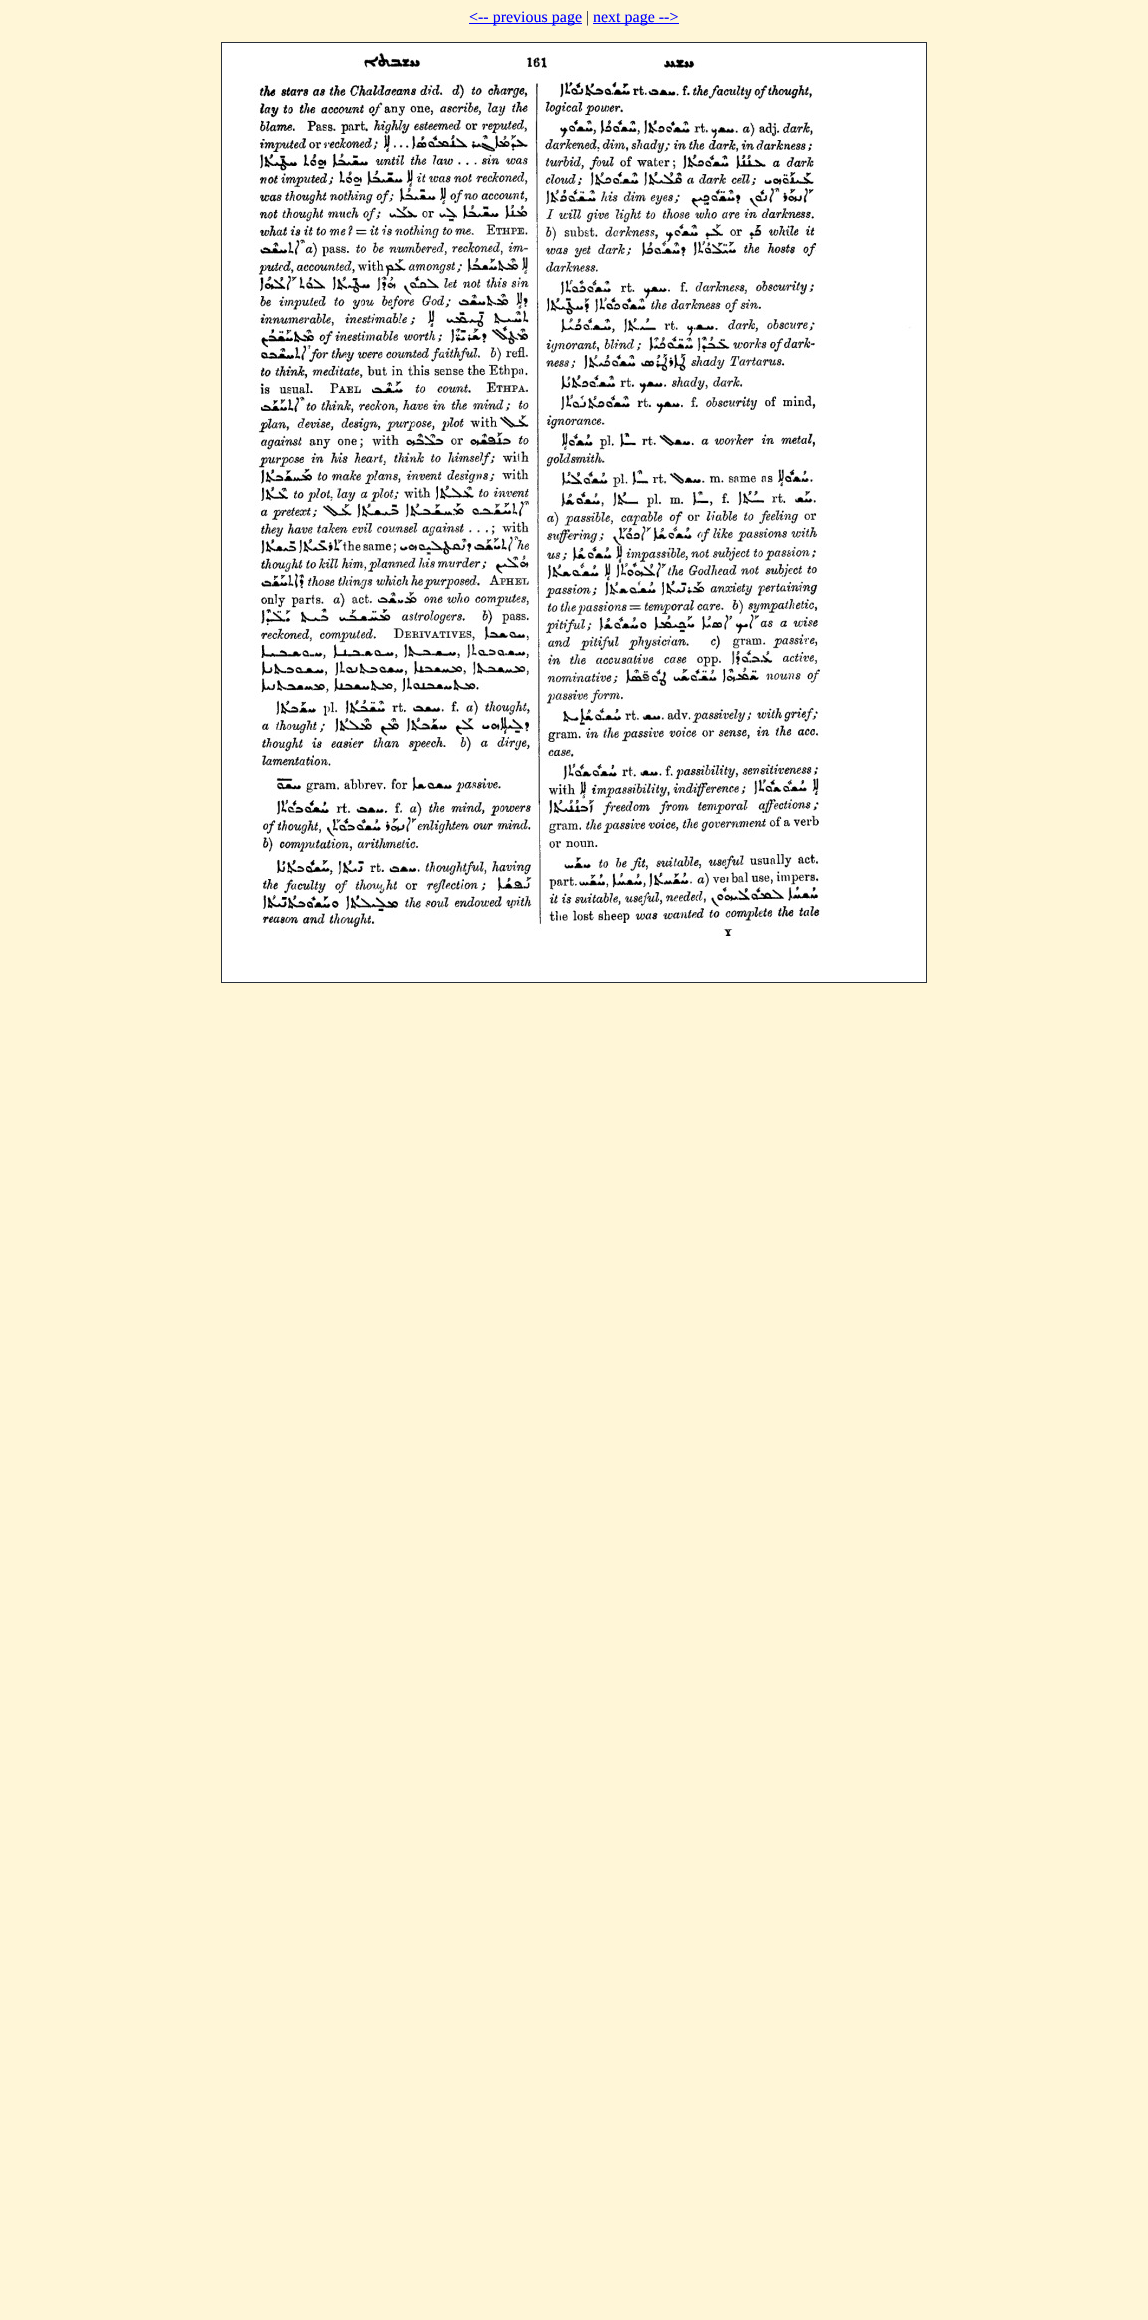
#include "include/core/SkBlurTypes.h"
#include "include/core/SkCanvas.h"
#include "include/core/SkData.h"
#include "include/core/SkFont.h"
#include "include/core/SkFontMgr.h"
#include "include/core/SkImage.h"
#include "include/core/SkMaskFilter.h"
#include "include/core/SkPaint.h"
#include "include/core/SkPathBuilder.h"
#include "include/core/SkTextBlob.h"
#include "include/effects/SkDashPathEffect.h"
#include "include/effects/SkGradientShader.h"
#include "include/utils/SkParsePath.h"

extern sk_sp<SkFontMgr> fontMgr;

void draw(SkCanvas* canvas) {
    SkPaint p;
    p.setAntiAlias(true);
    auto font = [&](const char* family, int weight, float size, bool italic = false) {
        SkFontStyle style(weight, SkFontStyle::kNormal_Width,
            italic ? SkFontStyle::kItalic_Slant : SkFontStyle::kUpright_Slant);
        SkFont result(fontMgr->matchFamilyStyle(family, style), size);
        result.setSubpixel(true);
        return result;
    };
    auto drawPhoto = [&](const char* path, float l, float t, float r, float b) {
        auto image = SkImages::DeferredFromEncodedData(SkData::MakeFromFileName(path));
        canvas->drawImageRect(image, SkRect::MakeLTRB(l, t, r, b), SkSamplingOptions());
    };
    canvas->clear(0xFFFFF6D7);
    p.setColor(0xFF0000FF);
    canvas->drawRect(SkRect::MakeLTRB(469, 23, 582, 24), p);
    auto font1 = font("Liberation Serif", 400, 16);
    canvas->drawString("<-- previous page", 469, 22, font1, p);
    p.setColor(0xFF29303B);
    canvas->drawString("|", 586, 22, font1, p);
    p.setColor(0xFF0000FF);
    canvas->drawRect(SkRect::MakeLTRB(593, 23, 679, 24), p);
    canvas->drawString("next page -->", 593, 22, font1, p);
    p.setStyle(SkPaint::kStroke_Style);
    p.setStrokeWidth(1);
    p.setColor(0xFF29303B);
    canvas->drawRect(SkRect::MakeLTRB(221.5f, 42.5f, 926.5f, 982.5f), p);
    drawPhoto("media/1.png", 222, 43, 926, 982);
}
